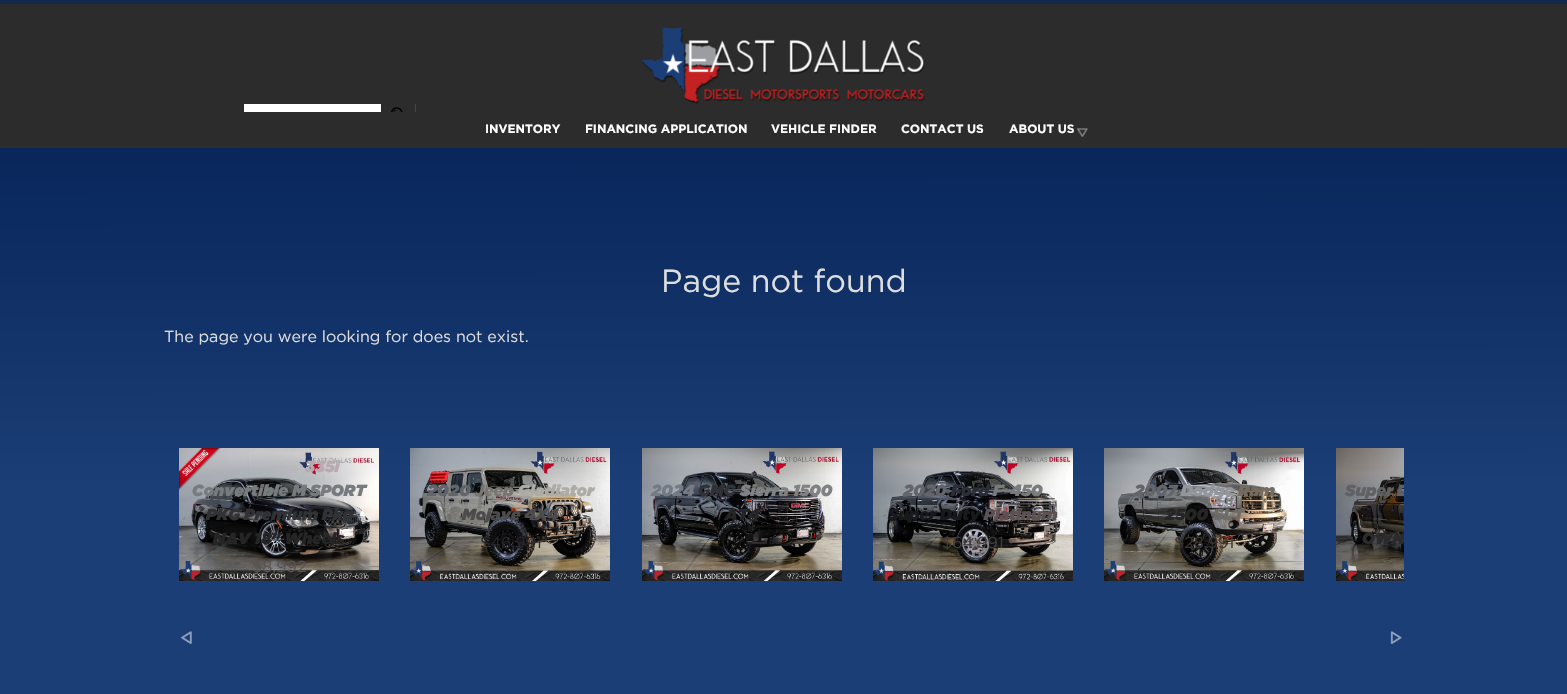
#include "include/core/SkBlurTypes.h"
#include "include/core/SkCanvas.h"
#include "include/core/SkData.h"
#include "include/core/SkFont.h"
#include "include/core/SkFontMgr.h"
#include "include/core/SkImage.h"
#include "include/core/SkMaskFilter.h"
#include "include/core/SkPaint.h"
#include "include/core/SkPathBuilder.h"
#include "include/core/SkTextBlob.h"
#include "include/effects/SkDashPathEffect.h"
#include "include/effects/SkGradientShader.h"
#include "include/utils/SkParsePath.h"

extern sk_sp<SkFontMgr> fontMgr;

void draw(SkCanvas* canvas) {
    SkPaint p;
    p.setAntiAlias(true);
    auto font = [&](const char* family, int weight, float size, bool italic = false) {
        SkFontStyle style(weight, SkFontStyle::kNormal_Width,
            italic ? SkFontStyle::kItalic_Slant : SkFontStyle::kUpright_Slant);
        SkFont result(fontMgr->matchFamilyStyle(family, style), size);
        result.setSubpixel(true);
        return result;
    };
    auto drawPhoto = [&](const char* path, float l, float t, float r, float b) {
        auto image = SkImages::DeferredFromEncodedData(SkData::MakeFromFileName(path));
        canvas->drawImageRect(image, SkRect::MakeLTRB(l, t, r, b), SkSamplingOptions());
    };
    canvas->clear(0xFFFFFFFF);
    {
        const SkColor colors[] = {0xFF001C4E, 0xFF1B3E76, 0xFF1B3E76, 0xFF001C4E};
        const float stops[] = {0, 0.41f, 0.59f, 1};
        const SkPoint ends[] = {{783, 0}, {784, 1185}};
        p.setShader(SkGradientShader::MakeLinear(ends, colors, stops, 4, SkTileMode::kClamp));
        p.setAlpha(255);
    }
    canvas->drawRect(SkRect::MakeLTRB(0, 148, 1567, 694), p);
    p.setShader(nullptr);
    p.setColor(0xFF2C2C2C);
    canvas->drawRect(SkRect::MakeLTRB(0, 4, 1567, 148), p);
    p.setColor(0xFF12284C);
    canvas->drawRect(SkRect::MakeLTRB(0, 0, 1567, 4), p);
    drawPhoto("media/1.png", 642, 27, 925, 104);
    p.setColor(0xFF454545);
    canvas->drawRect(SkRect::MakeLTRB(415, 104, 416, 112), p);
    p.setColor(0xFFFFFFFF);
    canvas->drawRect(SkRect::MakeLTRB(244, 104, 381, 112), p);
    drawPhoto("media/2.png", 390, 107, 403, 112);
    auto font1 = font("Gotham", 700, 12);
    p.setColor(0xFFFEFEFE);
    {
        const struct { const char* s; float x, y; } items[] = {
            {"INVENTORY", 485, 133},
            {"FINANCING APPLICATION", 585, 133},
            {"VEHICLE FINDER", 771, 133},
            {"CONTACT US", 901, 133},
            {"ABOUT US", 1009, 133},
        };
        for (auto [s, x, y] : items) {
            canvas->drawString(s, x, y, font1, p);
        }
    }
    drawPhoto("media/3.png", 1077, 128, 1088, 137);
    auto font2 = font("Gotham", 400, 32);
    p.setColor(0xFFDEDEDE);
    canvas->drawString("Page not found", 661, 292, font2, p);
    auto font3 = font("Gotham", 400, 16);
    canvas->drawString("The page you were looking for does not exist.", 164, 342, font3, p);
    drawPhoto("media/4.png", 179, 448, 379, 581);
    auto font4 = font("Gotham", 900, 16, true);
    p.setColor(0xFFB9A9B0);
    canvas->drawString("335i", 305, 472, font4, p);
    p.setColor(0xFF777B7D);
    canvas->drawString("Convertible M SPORT", 192, 496, font4, p);
    p.setColor(0xFF313236);
    canvas->drawString("PKG Premium Pkg", 206, 520, font4, p);
    p.setColor(0xFF252526);
    canvas->drawString("NAV 18\" Wheels", 213, 544, font4, p);
    p.setColor(0xFF565350);
    canvas->drawString("$8,992", 252, 572, font3, p);
    drawPhoto("media/5.png", 410, 448, 610, 581);
    p.setColor(0xFF62666A);
    canvas->drawString("2020", 427, 496, font4, p);
    p.setColor(0xFF787572);
    canvas->drawString("Jeep", 475, 496, font4, p);
    p.setColor(0xFFACABA6);
    canvas->drawString("Gladiator", 518, 496, font4, p);
    p.setColor(0xFF4D4B4B);
    canvas->drawString("Mojave 4X4", 462, 520, font4, p);
    p.setColor(0xFF252526);
    canvas->drawString("$46,991", 480, 548, font3, p);
    drawPhoto("media/6.png", 642, 448, 842, 581);
    p.setColor(0xFF747B85);
    canvas->drawString("2024", 651, 496, font4, p);
    p.setColor(0xFF313236);
    canvas->drawString("GMC", 698, 496, font4, p);
    p.setColor(0xFF808182);
    canvas->drawString("Sierra 1500", 740, 496, font4, p);
    p.setColor(0xFF252526);
    canvas->drawString("AT4", 725, 520, font4, p);
    drawPhoto("media/7.png", 873, 448, 1073, 581);
    p.setColor(0xFF62666A);
    canvas->drawString("2020", 903, 496, font4, p);
    p.setColor(0xFF2B2E36);
    canvas->drawString("Ford", 951, 496, font4, p);
    p.setColor(0xFF777B7D);
    canvas->drawString("F-450", 993, 496, font4, p);
    p.setColor(0xFF17191C);
    canvas->drawString("Super Duty", 888, 520, font4, p);
    p.setColor(0xFF5C5253);
    canvas->drawString("Platinum", 984, 520, font4, p);
    p.setColor(0xFF3F3C3B);
    canvas->drawString("$64,991", 942, 548, font3, p);
    drawPhoto("media/8.png", 1104, 448, 1304, 581);
    p.setColor(0xFF62666A);
    canvas->drawString("2007", 1134, 496, font4, p);
    p.setColor(0xFF93969B);
    canvas->drawString("Dodge", 1181, 496, font4, p);
    p.setColor(0xFF746B61);
    canvas->drawString("Ram", 1238, 496, font4, p);
    p.setColor(0xFF252526);
    canvas->drawString("2500", 1165, 520, font4, p);
    p.setColor(0xFF6F6B69);
    canvas->drawString("SLT", 1213, 520, font4, p);
    p.setColor(0xFF3B3430);
    canvas->drawString("$28,991", 1174, 548, font3, p);
    drawPhoto("media/9.png", 1336, 448, 1404, 581);
    canvas->save();
    canvas->clipRect(SkRect::MakeLTRB(164, 432, 1404, 608));
    p.setColor(0xFF616164);
    canvas->drawString("Super D", 1345, 496, font4, p);
    p.setColor(0xFF2B2B2B);
    canvas->drawString("OWN", 1362, 544, font4, p);
    canvas->restore();
    drawPhoto("media/10.png", 180, 631, 192, 644);
    drawPhoto("media/11.png", 1390, 631, 1402, 644);
}
